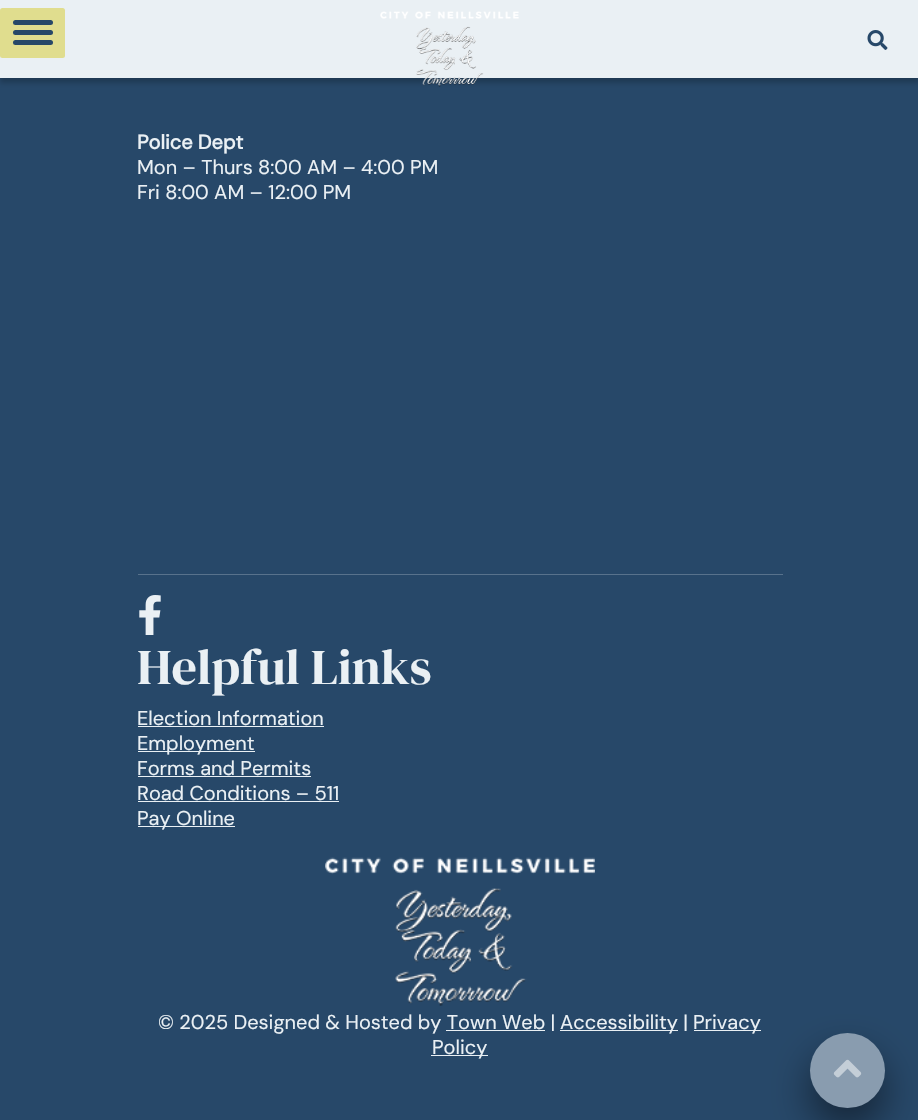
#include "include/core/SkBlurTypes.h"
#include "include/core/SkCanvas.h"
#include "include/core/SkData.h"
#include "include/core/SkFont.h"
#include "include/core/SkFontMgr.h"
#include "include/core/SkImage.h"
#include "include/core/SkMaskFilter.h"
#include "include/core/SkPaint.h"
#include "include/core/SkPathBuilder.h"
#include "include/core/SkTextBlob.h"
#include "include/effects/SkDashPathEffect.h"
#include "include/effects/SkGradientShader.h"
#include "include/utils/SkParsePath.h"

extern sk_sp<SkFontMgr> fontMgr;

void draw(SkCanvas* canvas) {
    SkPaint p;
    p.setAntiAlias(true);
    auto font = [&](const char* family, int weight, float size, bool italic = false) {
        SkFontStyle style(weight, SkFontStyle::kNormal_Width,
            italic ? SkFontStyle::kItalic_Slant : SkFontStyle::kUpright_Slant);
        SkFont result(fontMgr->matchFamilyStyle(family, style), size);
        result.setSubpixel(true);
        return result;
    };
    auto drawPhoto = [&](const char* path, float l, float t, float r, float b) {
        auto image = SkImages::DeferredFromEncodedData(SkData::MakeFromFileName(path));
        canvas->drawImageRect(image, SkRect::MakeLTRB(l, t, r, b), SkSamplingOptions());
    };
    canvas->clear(0xFF274869);
    p.setColor(0x33000000);
    p.setMaskFilter(SkMaskFilter::MakeBlur(kNormal_SkBlurStyle, 2.5f));
    canvas->drawRect(SkRect::MakeLTRB(0, 5, 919, 83), p);
    p.setMaskFilter(nullptr);
    p.setColor(0xFFEAF0F4);
    canvas->drawRect(SkRect::MakeLTRB(0, 0, 918, 78), p);
    p.setColor(0xFFE0DD8E);
    canvas->drawRoundRect(SkRect::MakeLTRB(0, 8, 65, 58), 2.5f, 2.5f, p);
    p.setColor(0xFF274868);
    canvas->drawRoundRect(SkRect::MakeLTRB(13, 20, 53, 25), 2.5f, 2.5f, p);
    canvas->drawRoundRect(SkRect::MakeLTRB(13, 30, 53, 35), 2.5f, 2.5f, p);
    canvas->drawRoundRect(SkRect::MakeLTRB(13, 40, 53, 45), 2.5f, 2.5f, p);
    drawPhoto("media/1.png", 380, 11, 519, 87);
    drawPhoto("media/2.png", 867, 30, 888, 50);
    auto font1 = font("DM Sans", 700, 20);
    p.setColor(0xFFEAF0F4);
    canvas->drawString("Police Dept", 137, 149, font1, p);
    auto font2 = font("DM Sans", 400, 20);
    canvas->drawString("Mon – Thurs 8:00 AM – 4:00 PM", 137, 174, font2, p);
    canvas->drawString("Fri 8:00 AM – 12:00 PM", 137, 199, font2, p);
    p.setColor(0xFF58728C);
    canvas->drawRect(SkRect::MakeLTRB(138, 574, 783, 575), p);
    drawPhoto("media/3.png", 139, 595, 161, 635);
    auto font3 = font("DM Serif Display", 400, 50);
    p.setColor(0xFFEAF0F4);
    canvas->drawString("Helpful Links", 137, 684, font3, p);
    canvas->drawString("Election Information", 137, 725, font2, p);
    canvas->drawRect(SkRect::MakeLTRB(138, 726, 324, 727), p);
    canvas->drawRect(SkRect::MakeLTRB(138, 751, 255, 752), p);
    canvas->drawString("Employment", 137, 750, font2, p);
    canvas->drawString("Forms and Permits", 137, 775, font2, p);
    canvas->drawRect(SkRect::MakeLTRB(138, 776, 311, 777), p);
    canvas->drawString("Road Conditions – 511", 137, 800, font2, p);
    canvas->drawRect(SkRect::MakeLTRB(138, 801, 339, 802), p);
    canvas->drawRect(SkRect::MakeLTRB(138, 826, 235, 827), p);
    canvas->drawString("Pay Online", 137, 825, font2, p);
    drawPhoto("media/4.png", 325, 857, 595, 1006);
    canvas->drawString("© 2025 Designed & Hosted by Town Web |", 158, 1029, font2, p);
    canvas->drawRect(SkRect::MakeLTRB(560, 1030, 678, 1031), p);
    canvas->drawString("Accessibility |", 560, 1029, font2, p);
    canvas->drawRect(SkRect::MakeLTRB(694, 1030, 761, 1031), p);
    canvas->drawString("Privacy", 693, 1029, font2, p);
    canvas->drawRect(SkRect::MakeLTRB(446, 1030, 545, 1031), p);
    canvas->drawRect(SkRect::MakeLTRB(431, 1055, 488, 1056), p);
    canvas->drawString("Policy", 432, 1054, font2, p);
    p.setColor(0xFF142435);
    p.setMaskFilter(SkMaskFilter::MakeBlur(kNormal_SkBlurStyle, 20));
    canvas->drawRoundRect(SkRect::MakeLTRB(810, 1053, 885, 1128), 37.5f, 37.5f, p);
    p.setMaskFilter(nullptr);
    p.setColor(0xFF899CAF);
    canvas->drawCircle(847.5f, 1070.5f, 37.5f, p);
    drawPhoto("media/5.png", 833, 1059, 862, 1078);
}
